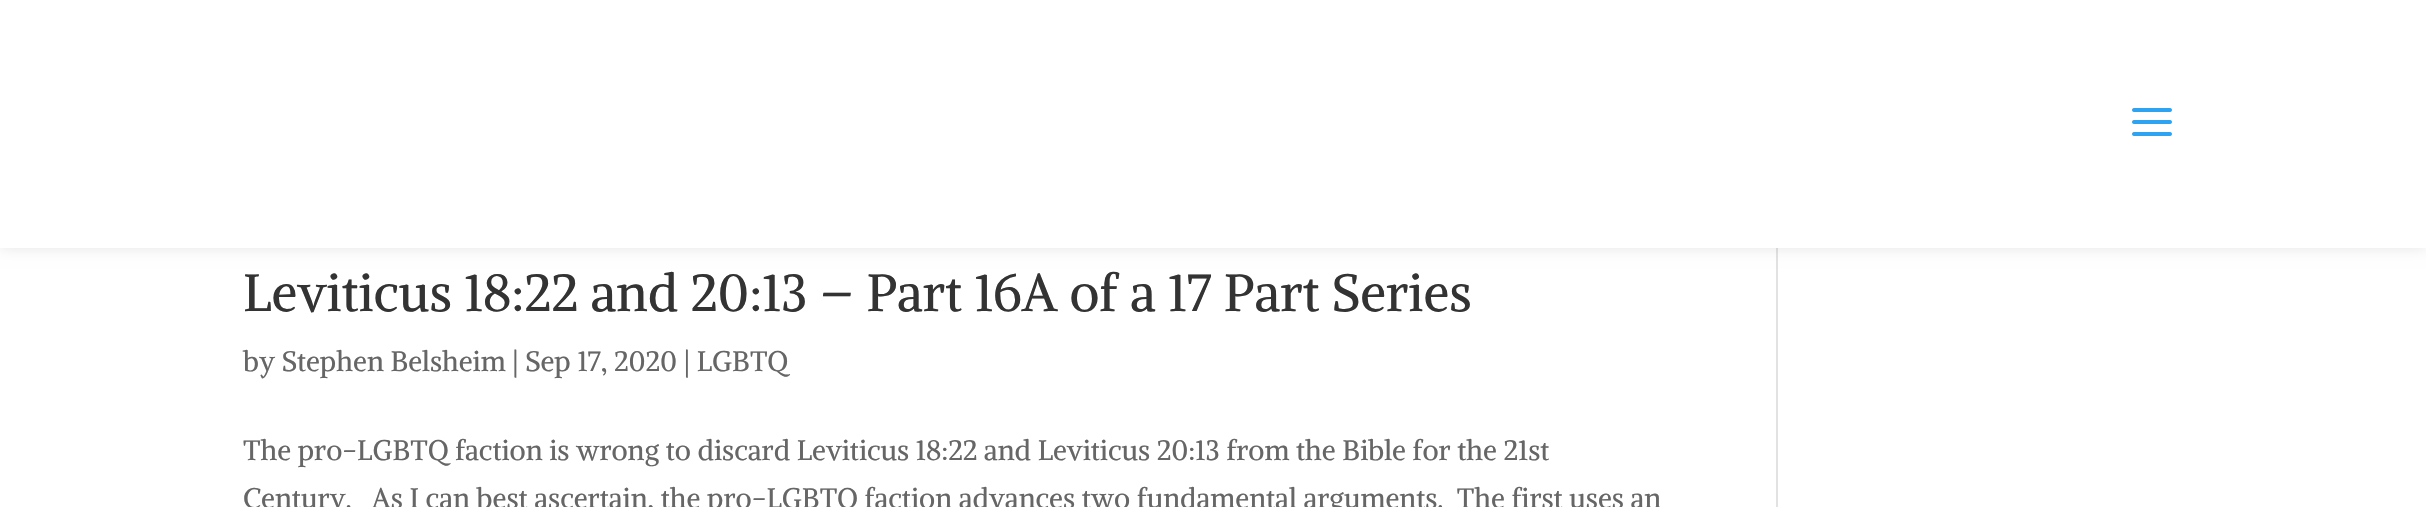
#include "include/core/SkBlurTypes.h"
#include "include/core/SkCanvas.h"
#include "include/core/SkData.h"
#include "include/core/SkFont.h"
#include "include/core/SkFontMgr.h"
#include "include/core/SkImage.h"
#include "include/core/SkMaskFilter.h"
#include "include/core/SkPaint.h"
#include "include/core/SkPathBuilder.h"
#include "include/core/SkTextBlob.h"
#include "include/effects/SkDashPathEffect.h"
#include "include/effects/SkGradientShader.h"
#include "include/utils/SkParsePath.h"

extern sk_sp<SkFontMgr> fontMgr;

void draw(SkCanvas* canvas) {
    SkPaint p;
    p.setAntiAlias(true);
    auto font = [&](const char* family, int weight, float size, bool italic = false) {
        SkFontStyle style(weight, SkFontStyle::kNormal_Width,
            italic ? SkFontStyle::kItalic_Slant : SkFontStyle::kUpright_Slant);
        SkFont result(fontMgr->matchFamilyStyle(family, style), size);
        result.setSubpixel(true);
        return result;
    };
    auto drawPhoto = [&](const char* path, float l, float t, float r, float b) {
        auto image = SkImages::DeferredFromEncodedData(SkData::MakeFromFileName(path));
        canvas->drawImageRect(image, SkRect::MakeLTRB(l, t, r, b), SkSamplingOptions());
    };
    canvas->clear(0xFFFFFFFF);
    p.setColor(0xFFE2E2E2);
    canvas->drawRect(SkRect::MakeLTRB(1776, 248, 1778, 507), p);
    p.setColor(0x1A000000);
    p.setMaskFilter(SkMaskFilter::MakeBlur(kNormal_SkBlurStyle, 7));
    canvas->drawRect(SkRect::MakeLTRB(0, 0, 2426, 248), p);
    p.setMaskFilter(nullptr);
    p.setColor(0xFFFFFFFF);
    canvas->drawRect(SkRect::MakeLTRB(0, 0, 2426, 248), p);
    drawPhoto("media/1.png", 2132, 108, 2172, 136);
    auto font1 = font("Alike", 400, 52);
    p.setColor(0xFF333333);
    canvas->drawString("Leviticus 18:22 and 20:13 – Part 16A of a 17 Part Series", 243, 311, font1, p);
    auto font2 = font("Alike", 400, 28);
    p.setColor(0xFF666666);
    {
        const struct { const char* s; float x, y; } items[] = {
            {"by Stephen Belsheim | Sep 17, 2020 | LGBTQ", 243, 371},
            {"The pro-LGBTQ faction is wrong to discard Leviticus 18:22 and Leviticus 20:13 from the Bible for the 21st", 243, 460},
            {"Century.   As I can best ascertain, the pro-LGBTQ faction advances two fundamental arguments.  The first uses an", 243, 508},
        };
        for (auto [s, x, y] : items) {
            canvas->drawString(s, x, y, font2, p);
        }
    }
}
